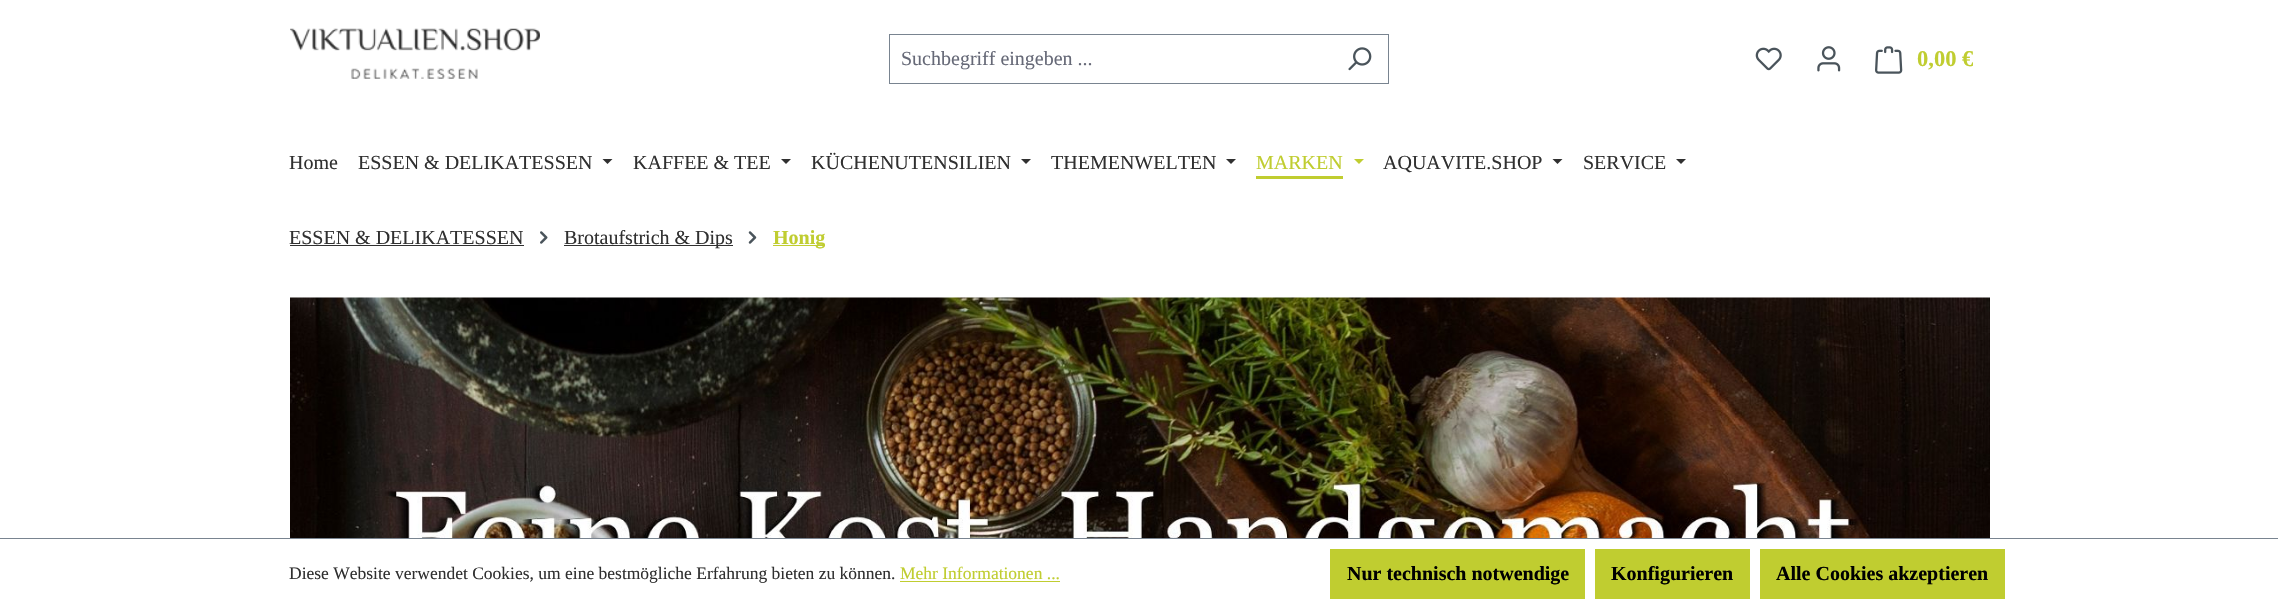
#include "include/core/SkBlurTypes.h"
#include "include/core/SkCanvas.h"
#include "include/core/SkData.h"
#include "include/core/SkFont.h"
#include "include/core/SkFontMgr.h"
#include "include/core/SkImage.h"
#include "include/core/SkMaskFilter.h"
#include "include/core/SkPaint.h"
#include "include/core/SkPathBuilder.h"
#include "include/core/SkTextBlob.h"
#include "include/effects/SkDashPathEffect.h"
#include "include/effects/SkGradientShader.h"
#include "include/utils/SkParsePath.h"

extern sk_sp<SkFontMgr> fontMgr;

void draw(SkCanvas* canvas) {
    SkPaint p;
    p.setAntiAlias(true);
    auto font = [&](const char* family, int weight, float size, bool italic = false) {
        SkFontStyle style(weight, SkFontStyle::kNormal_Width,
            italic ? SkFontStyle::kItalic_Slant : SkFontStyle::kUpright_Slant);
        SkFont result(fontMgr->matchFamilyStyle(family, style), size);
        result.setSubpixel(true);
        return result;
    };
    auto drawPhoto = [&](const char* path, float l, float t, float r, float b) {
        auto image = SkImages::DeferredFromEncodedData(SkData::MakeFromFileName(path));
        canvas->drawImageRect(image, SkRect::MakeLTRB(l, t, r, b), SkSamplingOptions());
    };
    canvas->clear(0xFFFFFFFF);
    drawPhoto("media/1.png", 290, 28, 540, 79);
    {
        const struct { float l, t, r, b; SkColor color; } items[] = {
            {889, 34, 1389, 35, 0xFF798490},
            {889, 83, 1331, 84, 0xFF798490},
            {889, 34, 890, 84, 0xFF798490},
        };
        for (auto [l, t, r, b, color] : items) {
            p.setColor(color);
            canvas->drawRect(SkRect::MakeLTRB(l, t, r, b), p);
        }
    }
    auto font1 = font("Liberation Serif", 400, 20);
    p.setColor(0xFF666977);
    canvas->drawString("Suchbegriff eingeben ...", 901, 65, font1, p);
    p.setColor(0xFF798490);
    canvas->drawRect(SkRect::MakeLTRB(1388, 34, 1389, 84), p);
    canvas->drawRect(SkRect::MakeLTRB(1330, 83, 1389, 84), p);
    drawPhoto("media/2.png", 1348, 47, 1372, 71);
    drawPhoto("media/3.png", 1755, 47, 1782, 71);
    drawPhoto("media/4.png", 1817, 46, 1841, 72);
    drawPhoto("media/5.png", 1875, 46, 1903, 74);
    auto font2 = font("Liberation Serif", 700, 22.5f);
    p.setColor(0xFFC0CD30);
    canvas->drawString("0,00 €", 1917, 66, font2, p);
    p.setColor(0xFF303030);
    canvas->drawString("Home", 289, 169, font1, p);
    canvas->drawString("ESSEN & DELIKATESSEN", 358, 169, font1, p);
    canvas->drawPath(SkPathBuilder().moveTo(602.5f, 159).lineTo(612.5f, 159).lineTo(607.5f, 164).close().detach(), p);
    canvas->drawString("KAFFEE & TEE", 633, 169, font1, p);
    canvas->drawPath(SkPathBuilder().moveTo(781, 159).lineTo(791, 159).lineTo(786, 164).close().detach(), p);
    canvas->drawString("KÜCHENUTENSILIEN", 811, 169, font1, p);
    canvas->drawPath(SkPathBuilder().moveTo(1021, 159).lineTo(1031, 159).lineTo(1026, 164).close().detach(), p);
    canvas->drawString("THEMENWELTEN", 1051, 169, font1, p);
    canvas->drawPath(SkPathBuilder().moveTo(1226, 159).lineTo(1236, 159).lineTo(1231, 164).close().detach(), p);
    p.setColor(0xFFC0CD30);
    canvas->drawString("MARKEN", 1256, 169, font1, p);
    canvas->drawRect(SkRect::MakeLTRB(1256, 176, 1343, 179), p);
    canvas->drawPath(SkPathBuilder().moveTo(1354, 159).lineTo(1364, 159).lineTo(1359, 164).close().detach(), p);
    p.setColor(0xFF303030);
    canvas->drawString("AQUAVITE.SHOP", 1383, 169, font1, p);
    canvas->drawPath(SkPathBuilder().moveTo(1552.5f, 159).lineTo(1562.5f, 159).lineTo(1557.5f, 164).close().detach(), p);
    canvas->drawString("SERVICE", 1583, 169, font1, p);
    canvas->drawPath(SkPathBuilder().moveTo(1676, 159).lineTo(1686, 159).lineTo(1681, 164).close().detach(), p);
    canvas->drawString("ESSEN & DELIKATESSEN", 289, 244, font1, p);
    canvas->drawRect(SkRect::MakeLTRB(290, 245, 524, 246), p);
    drawPhoto("media/6.png", 540, 231, 548, 244);
    canvas->drawRect(SkRect::MakeLTRB(564, 245, 733, 246), p);
    canvas->drawString("Brotaufstrich & Dips", 564, 244, font1, p);
    drawPhoto("media/7.png", 748, 231, 757, 244);
    p.setColor(0xFFC0CD30);
    canvas->drawRect(SkRect::MakeLTRB(773, 245, 825, 246), p);
    auto font3 = font("Liberation Serif", 700, 20);
    canvas->drawString("Honig", 773, 244, font3, p);
    drawPhoto("media/8.png", 290, 297, 1990, 538);
    p.setColor(0xFF798490);
    canvas->drawRect(SkRect::MakeLTRB(0, 538, 2278, 539), p);
    auto font4 = font("Liberation Serif", 400, 17.5f);
    p.setColor(0xFF303030);
    canvas->drawString("Diese Website verwendet Cookies, um eine bestmögliche Erfahrung bieten zu können.", 289, 579, font4, p);
    p.setColor(0xFFC0CD30);
    canvas->drawString("Mehr Informationen ...", 900, 579, font4, p);
    canvas->drawRect(SkRect::MakeLTRB(900, 581, 1060, 582), p);
    canvas->drawRect(SkRect::MakeLTRB(1330, 549, 1585, 599), p);
    p.setColor(0xFF000000);
    canvas->drawString("Nur technisch notwendige", 1347, 580, font3, p);
    p.setColor(0xFFC0CD30);
    canvas->drawRect(SkRect::MakeLTRB(1595, 549, 1750, 599), p);
    p.setColor(0xFF000000);
    canvas->drawString("Konfigurieren", 1611, 580, font3, p);
    p.setColor(0xFFC0CD30);
    canvas->drawRect(SkRect::MakeLTRB(1760, 549, 2005, 599), p);
    p.setColor(0xFF000000);
    canvas->drawString("Alle Cookies akzeptieren", 1776, 580, font3, p);
}
